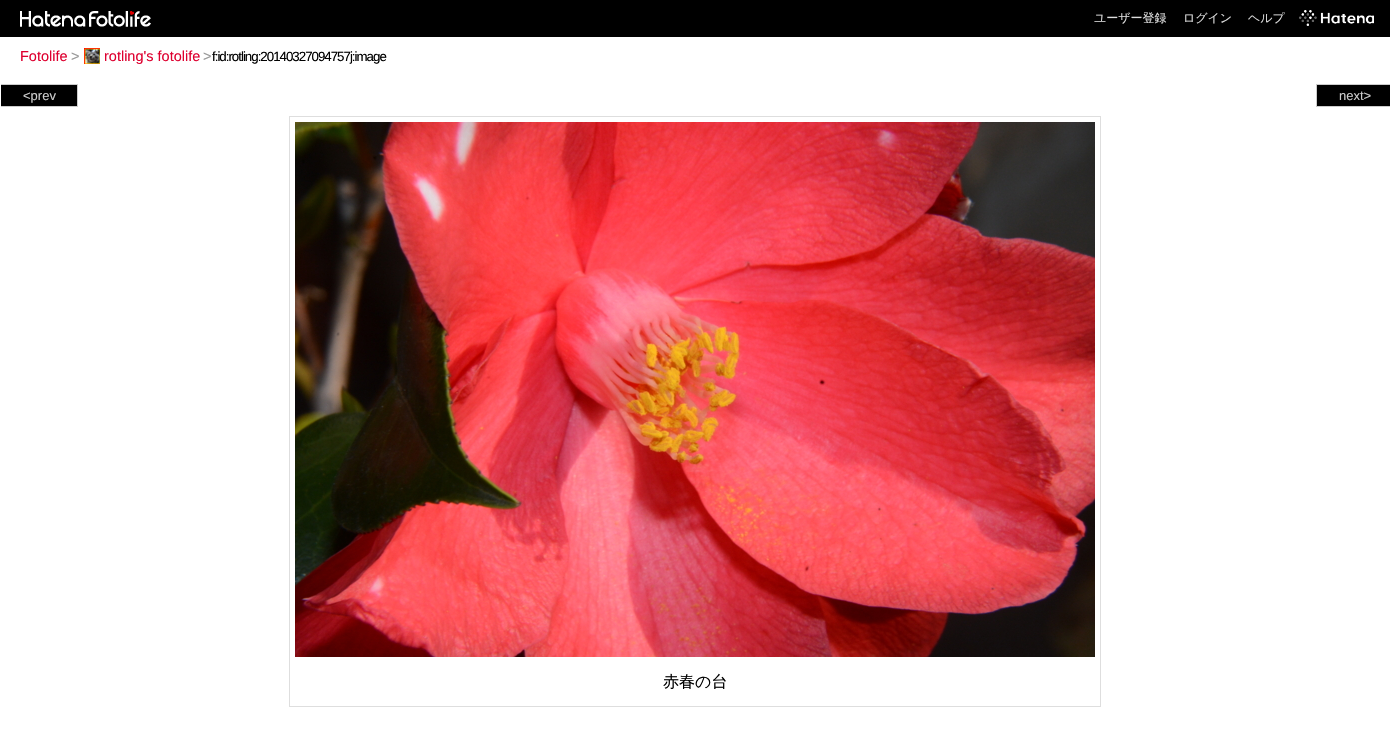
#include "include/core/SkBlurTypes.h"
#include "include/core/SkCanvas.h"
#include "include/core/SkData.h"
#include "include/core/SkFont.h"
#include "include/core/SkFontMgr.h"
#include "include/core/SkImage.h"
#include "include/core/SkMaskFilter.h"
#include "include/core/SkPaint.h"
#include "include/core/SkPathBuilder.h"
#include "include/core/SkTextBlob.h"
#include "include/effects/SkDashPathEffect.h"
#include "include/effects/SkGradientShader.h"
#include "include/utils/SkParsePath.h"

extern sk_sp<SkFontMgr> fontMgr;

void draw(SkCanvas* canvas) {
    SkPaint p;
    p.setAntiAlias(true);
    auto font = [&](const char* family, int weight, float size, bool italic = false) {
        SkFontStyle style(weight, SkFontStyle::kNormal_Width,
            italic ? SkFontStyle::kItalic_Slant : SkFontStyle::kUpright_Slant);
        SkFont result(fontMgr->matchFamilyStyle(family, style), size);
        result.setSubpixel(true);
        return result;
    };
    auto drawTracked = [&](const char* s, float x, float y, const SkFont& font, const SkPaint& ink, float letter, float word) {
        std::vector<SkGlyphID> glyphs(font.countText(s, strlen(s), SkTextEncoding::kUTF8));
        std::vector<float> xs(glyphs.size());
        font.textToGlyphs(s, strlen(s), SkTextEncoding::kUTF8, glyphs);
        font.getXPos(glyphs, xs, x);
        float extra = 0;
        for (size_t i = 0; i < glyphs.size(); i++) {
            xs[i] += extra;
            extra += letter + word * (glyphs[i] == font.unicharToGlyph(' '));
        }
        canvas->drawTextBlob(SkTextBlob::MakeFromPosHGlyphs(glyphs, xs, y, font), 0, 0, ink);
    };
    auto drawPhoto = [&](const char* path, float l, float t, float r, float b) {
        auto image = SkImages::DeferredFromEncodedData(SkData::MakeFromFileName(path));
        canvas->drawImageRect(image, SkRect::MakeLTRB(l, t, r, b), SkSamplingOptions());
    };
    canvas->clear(0xFFFFFFFF);
    p.setColor(0xFF000000);
    canvas->drawRect(SkRect::MakeLTRB(0, 0, 1390, 37), p);
    drawPhoto("media/1.png", 20, 11, 86, 27);
    drawPhoto("media/2.png", 89, 11, 151, 27);
    auto font1 = font("WenQuanYi Zen Hei", 500, 12);
    p.setColor(0xFFDDDDDD);
    {
        const struct { const char* s; float x, y; } items[] = {
            {"ユーザー登録", 1094, 22},
            {"ログイン", 1183, 22},
            {"ヘルプ", 1248, 22},
        };
        for (auto [s, x, y] : items) {
            canvas->drawString(s, x, y, font1, p);
        }
    }
    drawPhoto("media/3.png", 1299, 10, 1374, 26);
    auto font2 = font("Liberation Sans", 400, 14.5f);
    p.setColor(0xFFDE002F);
    canvas->drawString("Fotolife", 20, 61, font2, p);
    p.setColor(0xFF999999);
    canvas->drawString(">", 71, 61, font2, p);
    drawPhoto("media/4.png", 84, 48, 100, 64);
    p.setColor(0xFFDE002F);
    canvas->drawString("rotling's fotolife", 104, 61, font2, p);
    p.setColor(0xFF999999);
    canvas->drawString(">", 203, 61, font2, p);
    auto font3 = font("Liberation Sans", 400, 13.3f);
    p.setColor(0xFF000000);
    drawTracked("f:id:rotling:20140327094757j:image", 212, 61, font3, p, -1, 0);
    {
        const struct { float l, t, r, b; SkColor color; } items[] = {
            {1, 85, 77, 106, 0xFF000000},
            {1, 84, 78, 85, 0xFFCCCCCC},
            {77, 84, 78, 107, 0xFFCCCCCC},
            {1, 106, 78, 107, 0xFFCCCCCC},
        };
        for (auto [l, t, r, b, color] : items) {
            p.setColor(color);
            canvas->drawRect(SkRect::MakeLTRB(l, t, r, b), p);
        }
    }
    auto font4 = font("Liberation Sans", 400, 13);
    canvas->drawString("<prev", 23, 100, font4, p);
    {
        const struct { float l, t, r, b; SkColor color; } items[] = {
            {1317, 85, 1390, 106, 0xFF000000},
            {1316, 84, 1390, 85, 0xFFCCCCCC},
            {1316, 106, 1390, 107, 0xFFCCCCCC},
            {1316, 84, 1317, 107, 0xFFCCCCCC},
        };
        for (auto [l, t, r, b, color] : items) {
            p.setColor(color);
            canvas->drawRect(SkRect::MakeLTRB(l, t, r, b), p);
        }
    }
    canvas->drawString("next>", 1339, 100, font4, p);
    p.setStyle(SkPaint::kStroke_Style);
    p.setStrokeWidth(1);
    p.setColor(0xFFDEDEDE);
    canvas->drawRect(SkRect::MakeLTRB(289.5f, 116.5f, 1100.5f, 706.5f), p);
    drawPhoto("media/5.png", 295, 122, 1095, 657);
    auto font5 = font("WenQuanYi Zen Hei", 500, 16);
    p.setStyle(SkPaint::kFill_Style);
    p.setColor(0xFF000000);
    canvas->drawString("赤春の台", 663, 687, font5, p);
}
